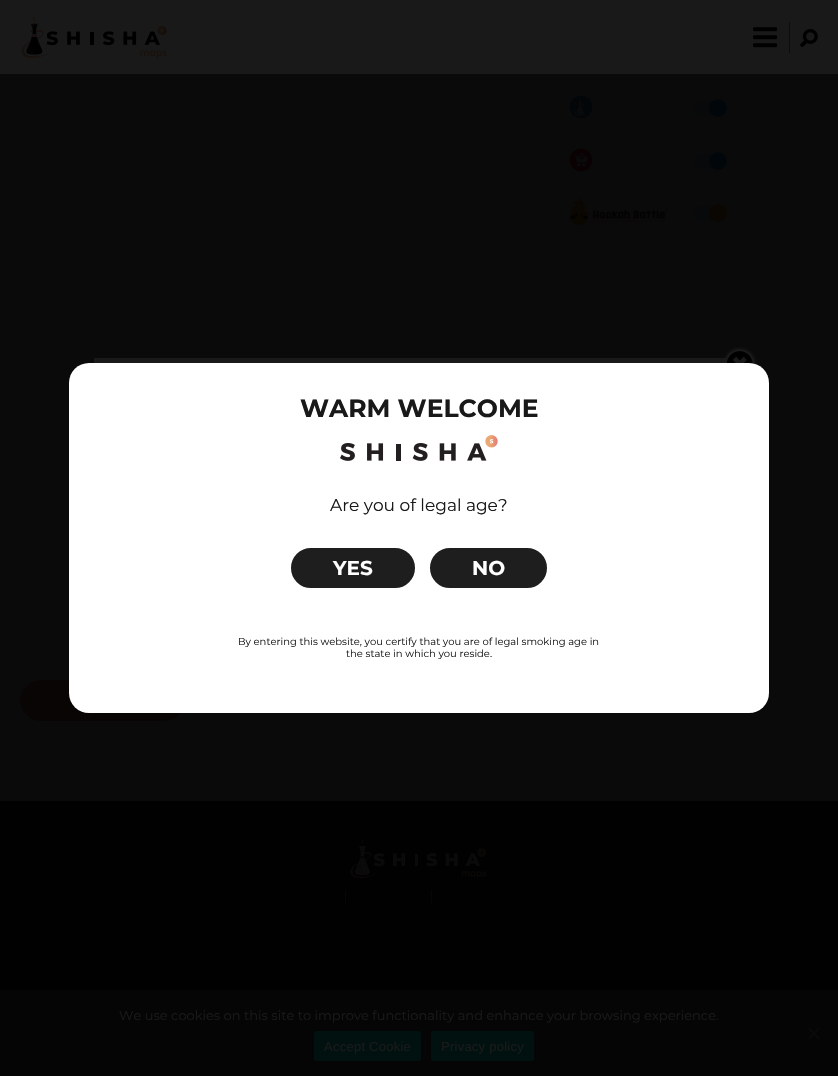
#include "include/core/SkBlurTypes.h"
#include "include/core/SkCanvas.h"
#include "include/core/SkData.h"
#include "include/core/SkFont.h"
#include "include/core/SkFontMgr.h"
#include "include/core/SkImage.h"
#include "include/core/SkMaskFilter.h"
#include "include/core/SkPaint.h"
#include "include/core/SkPathBuilder.h"
#include "include/core/SkTextBlob.h"
#include "include/effects/SkDashPathEffect.h"
#include "include/effects/SkGradientShader.h"
#include "include/utils/SkParsePath.h"

extern sk_sp<SkFontMgr> fontMgr;

void draw(SkCanvas* canvas) {
    SkPaint p;
    p.setAntiAlias(true);
    auto font = [&](const char* family, int weight, float size, bool italic = false) {
        SkFontStyle style(weight, SkFontStyle::kNormal_Width,
            italic ? SkFontStyle::kItalic_Slant : SkFontStyle::kUpright_Slant);
        SkFont result(fontMgr->matchFamilyStyle(family, style), size);
        result.setSubpixel(true);
        return result;
    };
    auto drawTracked = [&](const char* s, float x, float y, const SkFont& font, const SkPaint& ink, float letter, float word) {
        std::vector<SkGlyphID> glyphs(font.countText(s, strlen(s), SkTextEncoding::kUTF8));
        std::vector<float> xs(glyphs.size());
        font.textToGlyphs(s, strlen(s), SkTextEncoding::kUTF8, glyphs);
        font.getXPos(glyphs, xs, x);
        float extra = 0;
        for (size_t i = 0; i < glyphs.size(); i++) {
            xs[i] += extra;
            extra += letter + word * (glyphs[i] == font.unicharToGlyph(' '));
        }
        canvas->drawTextBlob(SkTextBlob::MakeFromPosHGlyphs(glyphs, xs, y, font), 0, 0, ink);
    };
    auto drawPhoto = [&](const char* path, float l, float t, float r, float b) {
        auto image = SkImages::DeferredFromEncodedData(SkData::MakeFromFileName(path));
        canvas->drawImageRect(image, SkRect::MakeLTRB(l, t, r, b), SkSamplingOptions());
    };
    canvas->clear(0xFF0A0A0A);
    p.setColor(0xFF191919);
    canvas->drawRect(SkRect::MakeLTRB(0, 0, 838, 74), p);
    drawPhoto("media/1.png", 21, 16, 167, 58);
    drawPhoto("media/2.png", 753, 27, 777, 48);
    p.setColor(0xFF190801);
    canvas->drawRect(SkRect::MakeLTRB(789, 22, 790, 53), p);
    drawPhoto("media/3.png", 800, 29, 818, 47);
    drawPhoto("media/4.png", 569, 95, 593, 119);
    p.setColor(0xFF07090A);
    canvas->drawRoundRect(SkRect::MakeLTRB(693, 101, 727, 116), 7.5f, 7.5f, p);
    p.setColor(0xFF01060A);
    canvas->drawCircle(718, 108, 9, p);
    drawPhoto("media/5.png", 569, 148, 593, 172);
    p.setColor(0xFF07090A);
    canvas->drawRoundRect(SkRect::MakeLTRB(693, 154, 727, 169), 7.5f, 7.5f, p);
    p.setColor(0xFF01060A);
    canvas->drawCircle(718, 161, 9, p);
    drawPhoto("media/6.png", 569, 196, 668, 225);
    p.setColor(0xFF07090A);
    canvas->drawRoundRect(SkRect::MakeLTRB(693, 206, 727, 221), 7.5f, 7.5f, p);
    p.setColor(0xFF0A0601);
    canvas->drawCircle(718, 213, 9, p);
    p.setColor(0xFF090505);
    canvas->drawRoundRect(SkRect::MakeLTRB(20, 680, 185, 721), 20.5f, 20.5f, p);
    p.setColor(0xFF010101);
    canvas->drawRect(SkRect::MakeLTRB(0, 801, 838, 990), p);
    drawPhoto("media/7.png", 350, 839, 487, 879);
    {
        const struct { float l, t, r, b; SkColor color; } items[] = {
            {345, 890, 346, 905, 0xFF060606},
            {431, 890, 432, 905, 0xFF060606},
            {94, 358, 727, 363, 0xFF191919},
        };
        for (auto [l, t, r, b, color] : items) {
            p.setColor(color);
            canvas->drawRect(SkRect::MakeLTRB(l, t, r, b), p);
        }
    }
    drawPhoto("media/8.png", 723, 347, 757, 365);
    p.setColor(0xFFFFFFFF);
    canvas->drawRoundRect(SkRect::MakeLTRB(69, 363, 769, 713), 20, 20, p);
    auto font1 = font("Montserrat", 700, 25);
    p.setColor(0xFF191919);
    canvas->drawString("WARM WELCOME", 300, 417, font1, p);
    drawPhoto("media/9.png", 340, 435, 498, 461);
    auto font2 = font("Montserrat", 400, 17);
    canvas->drawString("Are you of legal age?", 330, 511, font2, p);
    p.setColor(0xFF1E1E1E);
    canvas->drawRoundRect(SkRect::MakeLTRB(292, 549, 414, 587), 19, 19, p);
    p.setStyle(SkPaint::kStroke_Style);
    p.setStrokeWidth(2);
    canvas->drawRoundRect(SkRect::MakeLTRB(292, 549, 414, 587), 19, 19, p);
    auto font3 = font("Montserrat", 700, 20);
    p.setStyle(SkPaint::kFill_Style);
    p.setColor(0xFFFFFFFF);
    canvas->drawString("YES", 333, 575, font3, p);
    p.setColor(0xFF1E1E1E);
    canvas->drawRoundRect(SkRect::MakeLTRB(431, 549, 546, 587), 19, 19, p);
    p.setStyle(SkPaint::kStroke_Style);
    canvas->drawRoundRect(SkRect::MakeLTRB(431, 549, 546, 587), 19, 19, p);
    p.setStyle(SkPaint::kFill_Style);
    p.setColor(0xFFFFFFFF);
    canvas->drawString("NO", 472, 575, font3, p);
    auto font4 = font("Montserrat", 400, 10);
    p.setColor(0xFF191919);
    canvas->drawString("By entering this website, you certify that you are of legal smoking age in", 238, 645, font4, p);
    canvas->drawString("the state in which you reside.", 346, 657, font4, p);
    p.setColor(0xFF050506);
    canvas->drawRect(SkRect::MakeLTRB(0, 990, 838, 1076), p);
    auto font5 = font("Montserrat", 400, 13);
    p.setColor(0xFF191919);
    canvas->drawString("We use cookies on this site to improve functionality and enhance your browsing experience.", 119, 1020, font5, p);
    p.setColor(0xFF090909);
    canvas->drawPath(SkPathBuilder().moveTo(818.5f, 1027.5f).lineTo(820, 1029).lineTo(809.5f, 1039.5f).lineTo(808, 1038).close().detach(), p);
    canvas->drawPath(SkPathBuilder().moveTo(808, 1029).lineTo(809.5f, 1027.5f).lineTo(820, 1038).lineTo(818.5f, 1039.5f).close().detach(), p);
    p.setColor(0xFF001110);
    canvas->drawRoundRect(SkRect::MakeLTRB(314, 1031, 421, 1061), 3, 3, p);
    auto font6 = font("Liberation Sans", 400, 13);
    p.setColor(0xFF191919);
    drawTracked("Accept Cookie", 324, 1051, font6, p, 0.25f, 0);
    p.setColor(0xFF001110);
    canvas->drawRoundRect(SkRect::MakeLTRB(431, 1031, 534, 1061), 3, 3, p);
    p.setColor(0xFF191919);
    drawTracked("Privacy policy", 441, 1051, font6, p, 0.25f, 0);
}
